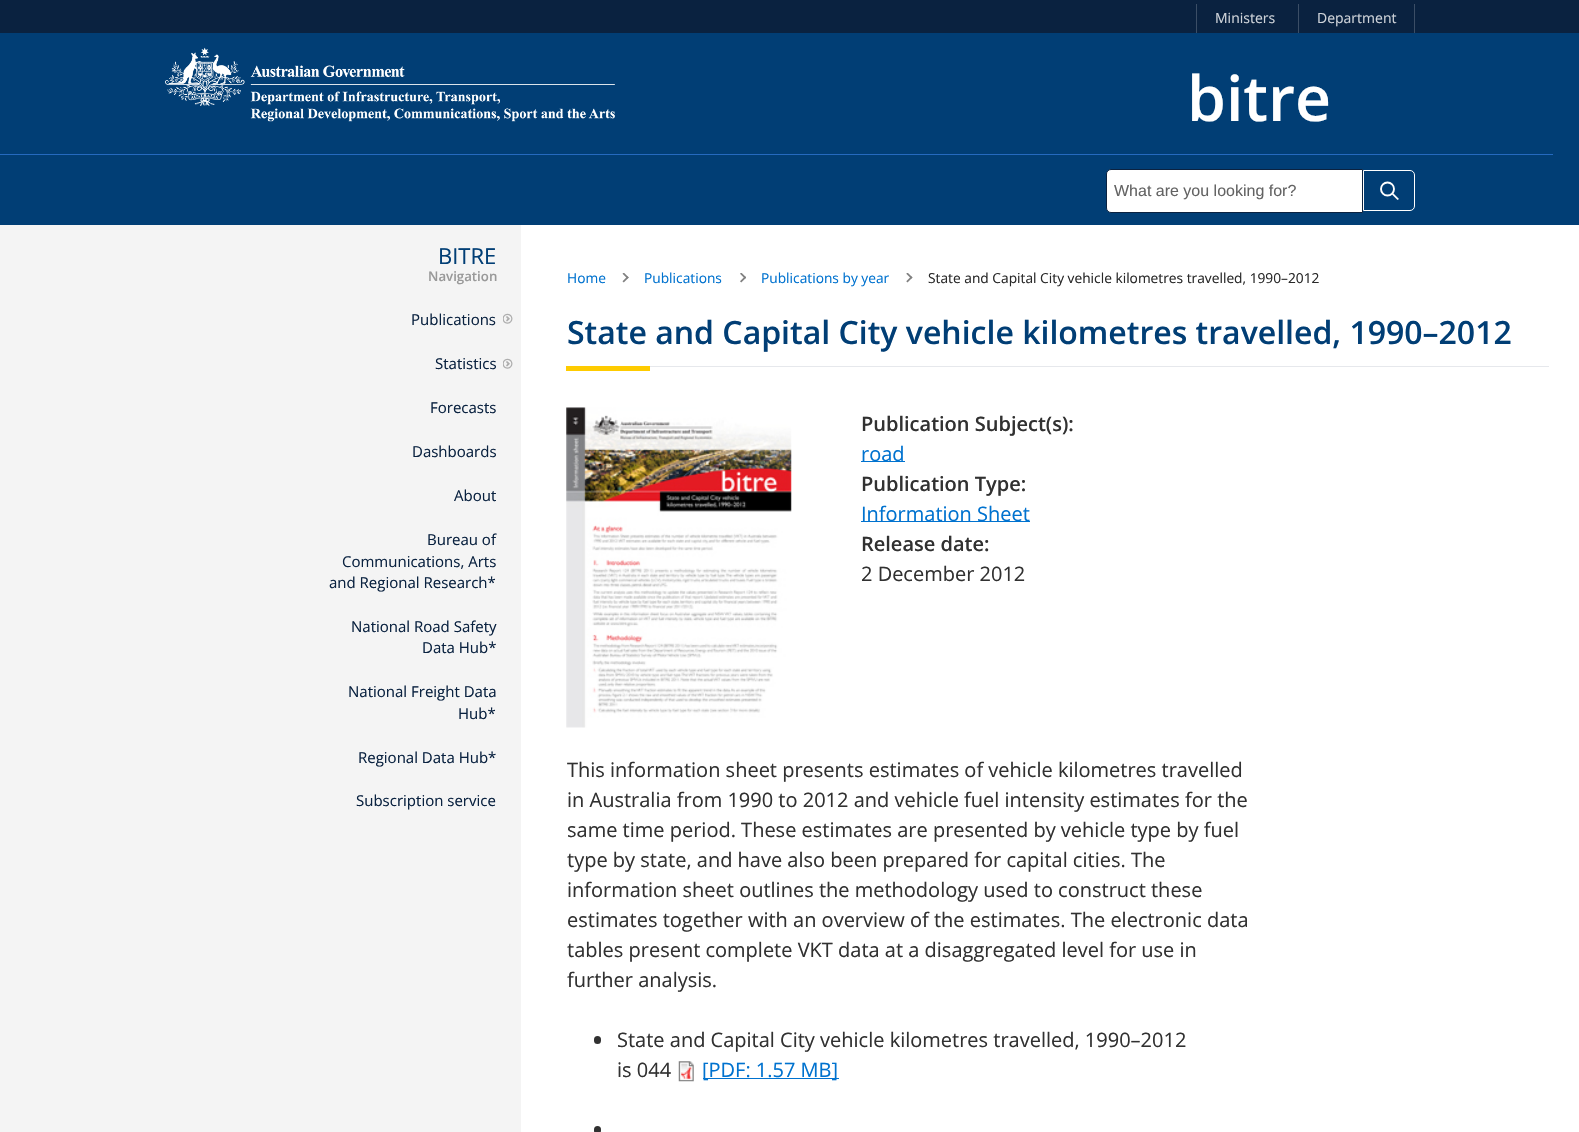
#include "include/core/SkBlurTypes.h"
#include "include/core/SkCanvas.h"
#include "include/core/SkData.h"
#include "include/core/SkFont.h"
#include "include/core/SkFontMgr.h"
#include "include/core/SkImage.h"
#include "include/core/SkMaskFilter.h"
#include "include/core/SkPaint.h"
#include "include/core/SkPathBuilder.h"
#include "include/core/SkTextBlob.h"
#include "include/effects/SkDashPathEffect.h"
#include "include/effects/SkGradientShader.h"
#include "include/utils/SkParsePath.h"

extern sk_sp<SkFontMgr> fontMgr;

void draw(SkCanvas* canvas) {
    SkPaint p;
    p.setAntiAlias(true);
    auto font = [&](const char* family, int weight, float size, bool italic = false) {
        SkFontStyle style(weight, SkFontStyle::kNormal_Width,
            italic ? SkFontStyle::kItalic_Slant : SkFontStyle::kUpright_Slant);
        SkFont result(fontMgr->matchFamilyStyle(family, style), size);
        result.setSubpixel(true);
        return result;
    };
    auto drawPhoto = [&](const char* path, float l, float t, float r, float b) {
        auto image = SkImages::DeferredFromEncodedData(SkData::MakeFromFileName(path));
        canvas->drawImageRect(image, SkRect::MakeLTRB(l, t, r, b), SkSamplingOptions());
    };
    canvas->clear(0xFFF4F4F4);
    p.setColor(0xFF0A2240);
    canvas->drawRect(SkRect::MakeLTRB(0, 0, 1579, 33), p);
    p.setColor(0xFF3B4E66);
    canvas->drawRect(SkRect::MakeLTRB(1196, 4, 1197, 33), p);
    auto font1 = font("Open Sans", 400, 14);
    p.setColor(0xFFCED3D9);
    canvas->drawString("Ministers", 1215, 23, font1, p);
    p.setColor(0xFF3B4E66);
    canvas->drawRect(SkRect::MakeLTRB(1414, 4, 1415, 33), p);
    canvas->drawRect(SkRect::MakeLTRB(1298, 4, 1299, 33), p);
    p.setColor(0xFFCED3D9);
    canvas->drawString("Department", 1317, 23, font1, p);
    p.setColor(0xFF013E75);
    canvas->drawRect(SkRect::MakeLTRB(0, 33, 1579, 225), p);
    p.setColor(0xFF256ABF);
    canvas->drawRect(SkRect::MakeLTRB(0, 154, 1553, 155), p);
    drawPhoto("media/1.png", 165, 47, 615, 122);
    auto font2 = font("Open Sans", 600, 62.5f);
    p.setColor(0xFFFFFFFF);
    canvas->drawString("bitre", 1187, 121, font2, p);
    canvas->drawPath(SkPathBuilder().moveTo(1111, 169.5f).lineTo(1362.5f, 169.5f).lineTo(1362.5f, 212.5f).lineTo(1111, 212.5f).cubicTo(1108.5f, 212.5f, 1106.5f, 210.5f, 1106.5f, 208).lineTo(1106.5f, 174).cubicTo(1106.5f, 171.5f, 1108.5f, 169.5f, 1111, 169.5f).close().detach(), p);
    p.setStyle(SkPaint::kStroke_Style);
    p.setStrokeWidth(1);
    p.setColor(0xFF0B2240);
    canvas->drawPath(SkPathBuilder().moveTo(1111, 169.5f).lineTo(1362.5f, 169.5f).lineTo(1362.5f, 212.5f).lineTo(1111, 212.5f).cubicTo(1108.5f, 212.5f, 1106.5f, 210.5f, 1106.5f, 208).lineTo(1106.5f, 174).cubicTo(1106.5f, 171.5f, 1108.5f, 169.5f, 1111, 169.5f).close().detach(), p);
    auto font3 = font("Liberation Sans", 400, 16);
    p.setStyle(SkPaint::kFill_Style);
    p.setColor(0xFF636363);
    canvas->drawString("What are you looking for?", 1114, 196, font3, p);
    p.setStyle(SkPaint::kStroke_Style);
    p.setStrokeWidth(1.9f);
    p.setColor(0xFFFFFFFF);
    canvas->drawCircle(1387.5f, 189, 6.5f, p);
    p.setStyle(SkPaint::kFill_Style);
    canvas->drawPath(SkPathBuilder().moveTo(1393, 193).lineTo(1399, 199).lineTo(1397.5f, 200).lineTo(1392, 194.5f).close().detach(), p);
    p.setStyle(SkPaint::kStroke_Style);
    p.setStrokeWidth(1);
    canvas->drawPath(SkPathBuilder().moveTo(1363.5f, 170.5f).lineTo(1410, 170.5f).cubicTo(1412.5f, 170.5f, 1414.5f, 172.5f, 1414.5f, 175).lineTo(1414.5f, 206).cubicTo(1414.5f, 208.5f, 1412.5f, 210.5f, 1410, 210.5f).lineTo(1363.5f, 210.5f).close().detach(), p);
    auto font4 = font("Open Sans", 400, 22);
    p.setStyle(SkPaint::kFill_Style);
    p.setColor(0xFF013E75);
    canvas->drawString("BITRE", 438, 264, font4, p);
    auto font5 = font("Open Sans", 600, 13.25f);
    p.setColor(0xFF999999);
    canvas->drawString("Navigation", 428, 281, font5, p);
    auto font6 = font("Open Sans", 400, 15);
    p.setColor(0xFF0A2240);
    canvas->drawString("Publications", 411, 325, font6, p);
    drawPhoto("media/2.png", 503, 313, 513, 324);
    canvas->drawString("Statistics", 435, 369, font6, p);
    drawPhoto("media/2.png", 503, 358, 513, 369);
    {
        const struct { const char* s; float x, y; } items[] = {
            {"Forecasts", 430, 413},
            {"Dashboards", 412, 457},
            {"About", 454, 501},
            {"Bureau of", 427, 545},
            {"Communications, Arts", 342, 567},
            {"and Regional Research*", 329, 588},
            {"National Road Safety", 351, 632},
            {"Data Hub*", 422, 653},
            {"National Freight Data", 348, 697},
            {"Hub*", 458, 719},
            {"Regional Data Hub*", 358, 763},
            {"Subscription service", 356, 806},
        };
        for (auto [s, x, y] : items) {
            canvas->drawString(s, x, y, font6, p);
        }
    }
    p.setColor(0xFFFFFFFF);
    canvas->drawRect(SkRect::MakeLTRB(521, 225, 1579, 1132), p);
    auto font7 = font("Open Sans", 400, 13.75f);
    p.setColor(0xFF0072CF);
    canvas->drawString("Home", 567, 283, font7, p);
    drawPhoto("media/3.png", 622, 273, 629, 283);
    canvas->drawString("Publications", 644, 283, font7, p);
    drawPhoto("media/4.png", 740, 273, 746, 283);
    canvas->drawString("Publications by year", 761, 283, font7, p);
    drawPhoto("media/5.png", 906, 273, 913, 283);
    p.setColor(0xFF292929);
    canvas->drawString("State and Capital City vehicle kilometres travelled, 1990–2012", 928, 283, font7, p);
    p.setColor(0xFFE6E8EC);
    canvas->drawRect(SkRect::MakeLTRB(650, 366, 1549, 367), p);
    auto font8 = font("Open Sans", 600, 32);
    p.setColor(0xFF013E75);
    canvas->drawString("State and Capital City vehicle kilometres travelled, 1990–2012", 567, 344, font8, p);
    p.setColor(0xFFFECB00);
    canvas->drawRect(SkRect::MakeLTRB(566, 366, 650, 371), p);
    drawPhoto("media/6.png", 566, 407, 792, 728);
    auto font9 = font("Open Sans", 600, 20);
    p.setColor(0xFF313131);
    canvas->drawString("Publication Subject(s):", 861, 431, font9, p);
    p.setColor(0xFF0072CF);
    canvas->drawRect(SkRect::MakeLTRB(861, 461, 905, 462), p);
    auto font10 = font("Open Sans", 400, 20);
    canvas->drawString("road", 861, 461, font10, p);
    p.setColor(0xFF313131);
    canvas->drawString("Publication Type:", 861, 491, font9, p);
    p.setColor(0xFF0072CF);
    canvas->drawRect(SkRect::MakeLTRB(861, 521, 1030, 522), p);
    canvas->drawString("Information Sheet", 861, 521, font10, p);
    p.setColor(0xFF313131);
    canvas->drawString("Release date:", 861, 551, font9, p);
    {
        const struct { const char* s; float x, y; } items[] = {
            {"2 December 2012", 861, 581},
            {"This information sheet presents estimates of vehicle kilometres travelled", 567, 777},
            {"in Australia from 1990 to 2012 and vehicle fuel intensity estimates for the", 567, 807},
            {"same time period. These estimates are presented by vehicle type by fuel", 567, 837},
            {"type by state, and have also been prepared for capital cities. The", 567, 867},
            {"information sheet outlines the methodology used to construct these", 567, 897},
            {"estimates together with an overview of the estimates. The electronic data", 567, 927},
            {"tables present complete VKT data at a disaggregated level for use in", 567, 957},
            {"further analysis.", 567, 987},
        };
        for (auto [s, x, y] : items) {
            canvas->drawString(s, x, y, font10, p);
        }
    }
    canvas->drawRoundRect(SkRect::MakeLTRB(594, 1036, 601, 1044), 3.5f, 3.5f, p);
    canvas->drawString("State and Capital City vehicle kilometres travelled, 1990–2012", 617, 1047, font10, p);
    canvas->drawString("is 044", 617, 1077, font10, p);
    drawPhoto("media/7.png", 678, 1061, 694, 1082);
    p.setColor(0xFF0072CF);
    canvas->drawRect(SkRect::MakeLTRB(703, 1078, 839, 1079), p);
    canvas->drawString("[PDF: 1.57 MB]", 702, 1077, font10, p);
    p.setColor(0xFF313131);
    canvas->drawRoundRect(SkRect::MakeLTRB(594, 1126, 601, 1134), 3.5f, 3.5f, p);
}
